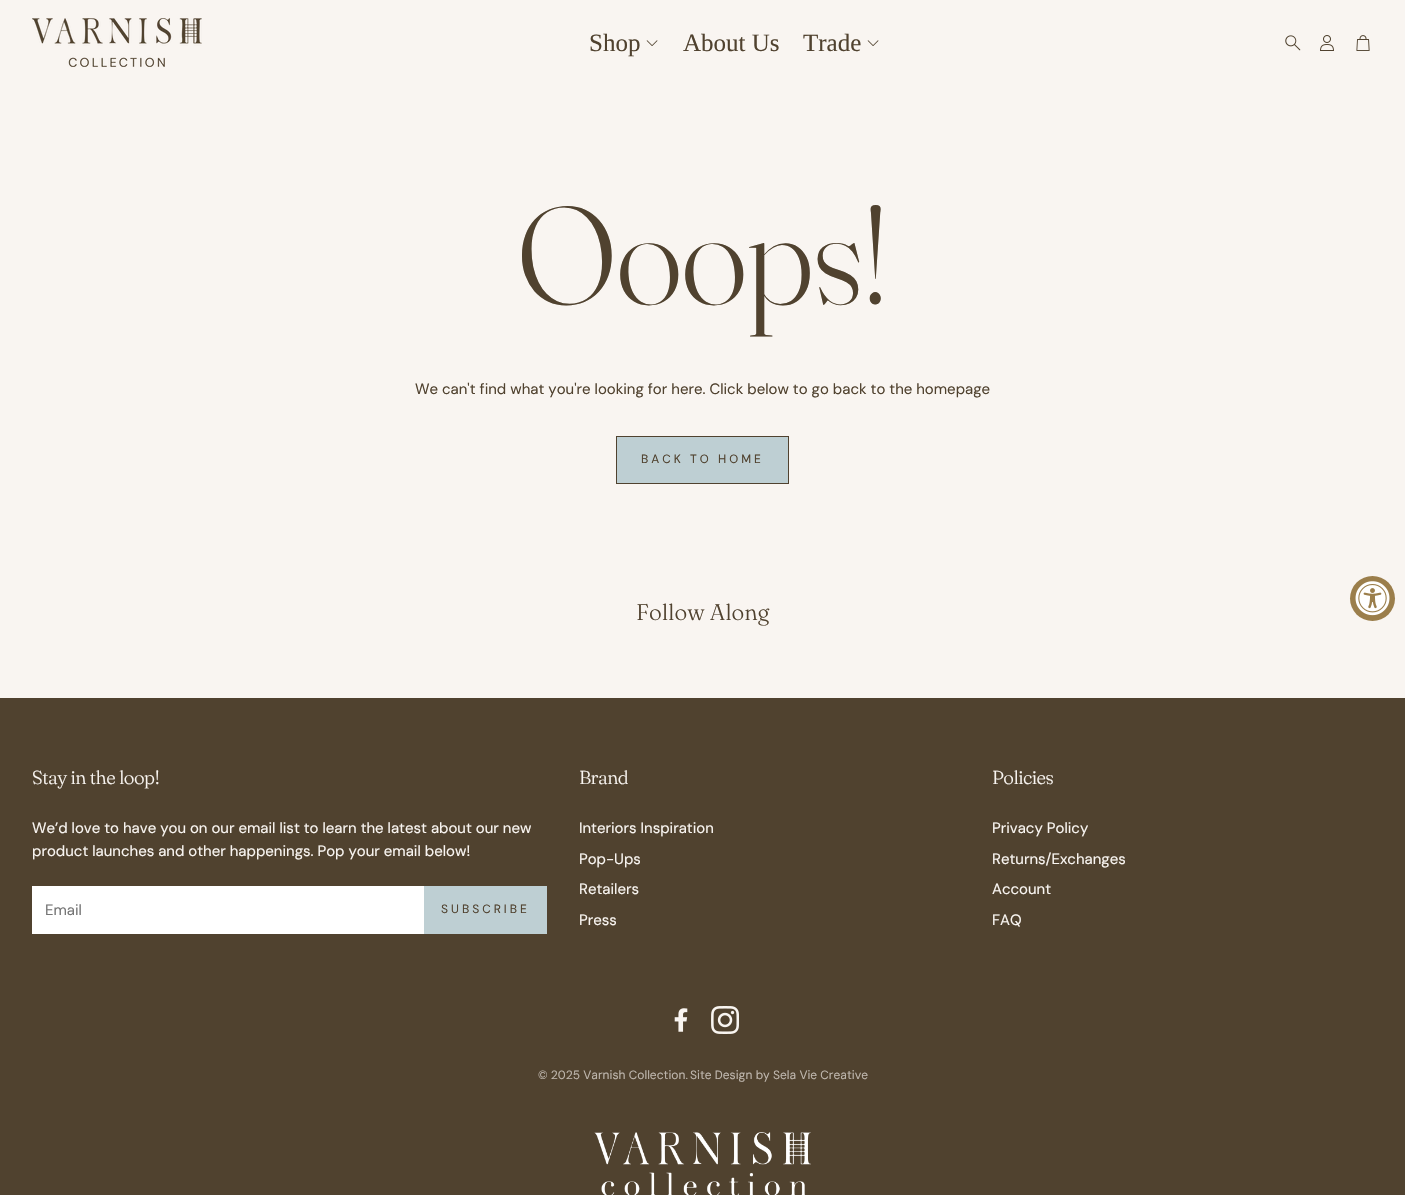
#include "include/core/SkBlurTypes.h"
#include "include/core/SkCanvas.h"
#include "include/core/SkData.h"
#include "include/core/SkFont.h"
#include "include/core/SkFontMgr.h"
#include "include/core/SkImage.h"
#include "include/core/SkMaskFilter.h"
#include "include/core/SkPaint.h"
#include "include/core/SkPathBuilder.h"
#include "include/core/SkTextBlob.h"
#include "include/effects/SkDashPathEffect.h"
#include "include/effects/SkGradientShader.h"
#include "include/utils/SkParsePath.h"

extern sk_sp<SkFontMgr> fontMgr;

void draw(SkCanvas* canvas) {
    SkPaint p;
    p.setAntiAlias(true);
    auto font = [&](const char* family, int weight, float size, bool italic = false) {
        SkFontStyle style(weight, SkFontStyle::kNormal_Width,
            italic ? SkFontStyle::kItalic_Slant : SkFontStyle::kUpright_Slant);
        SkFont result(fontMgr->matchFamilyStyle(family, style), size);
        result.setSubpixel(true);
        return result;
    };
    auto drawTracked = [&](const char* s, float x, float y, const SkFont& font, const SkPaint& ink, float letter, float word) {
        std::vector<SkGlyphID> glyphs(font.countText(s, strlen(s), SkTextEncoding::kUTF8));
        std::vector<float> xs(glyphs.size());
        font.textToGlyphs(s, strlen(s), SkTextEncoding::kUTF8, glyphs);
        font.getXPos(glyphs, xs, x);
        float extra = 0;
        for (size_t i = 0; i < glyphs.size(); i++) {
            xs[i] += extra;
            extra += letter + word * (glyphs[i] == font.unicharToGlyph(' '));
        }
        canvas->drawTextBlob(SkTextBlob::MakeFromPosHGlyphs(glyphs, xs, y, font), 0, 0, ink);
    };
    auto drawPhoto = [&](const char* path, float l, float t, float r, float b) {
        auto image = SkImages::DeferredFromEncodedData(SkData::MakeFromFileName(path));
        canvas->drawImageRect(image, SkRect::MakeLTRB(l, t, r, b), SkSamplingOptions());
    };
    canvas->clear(0xFFF9F5F1);
    drawPhoto("media/1.png", 32, 18, 202, 67);
    auto font1 = font("Liberation Serif", 400, 25);
    p.setColor(0xFF50422F);
    canvas->drawString("Shop", 589, 51, font1, p);
    drawPhoto("media/2.png", 646, 40, 658, 46);
    canvas->drawString("About Us", 683, 51, font1, p);
    canvas->drawString("Trade", 803, 51, font1, p);
    drawPhoto("media/2.png", 867, 40, 879, 46);
    drawPhoto("media/3.png", 1285, 35, 1301, 51);
    drawPhoto("media/4.png", 1320, 35, 1334, 51);
    drawPhoto("media/5.png", 1356, 35, 1370, 51);
    auto font2 = font("Fraunces", 300, 138);
    canvas->drawString("Ooops!", 517, 304, font2, p);
    auto font3 = font("DM Sans", 400, 15);
    canvas->drawString("We can't find what you're looking for here. Click below to go back to the homepage", 415, 394, font3, p);
    p.setColor(0xFFBECFD3);
    canvas->drawRect(SkRect::MakeLTRB(616.5f, 436.5f, 788.5f, 483.5f), p);
    p.setStyle(SkPaint::kStroke_Style);
    p.setStrokeWidth(1);
    p.setColor(0xFF50422F);
    canvas->drawRect(SkRect::MakeLTRB(616.5f, 436.5f, 788.5f, 483.5f), p);
    auto font4 = font("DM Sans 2", 400, 12);
    p.setStyle(SkPaint::kFill_Style);
    drawTracked("BACK TO HOME", 641, 463, font4, p, 3, 0);
    auto font5 = font("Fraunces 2", 300, 22.5f);
    canvas->drawString("Follow Along", 636, 620, font5, p);
    p.setColor(0xFF9B7E4B);
    canvas->drawCircle(1372.5f, 598.5f, 22.5f, p);
    drawPhoto("media/6.png", 1355, 581, 1390, 616);
    p.setColor(0xFF50422F);
    canvas->drawRect(SkRect::MakeLTRB(0, 698, 1405, 1195), p);
    auto font6 = font("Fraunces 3", 300, 18.75f);
    p.setColor(0xFFF9F5F1);
    drawTracked("Stay in the loop!", 32, 784, font6, p, -0.5f, 0);
    canvas->drawString("We’d love to have you on our email list to learn the latest about our new", 32, 833, font3, p);
    canvas->drawString("product launches and other happenings. Pop your email below!", 32, 856, font3, p);
    {
        const struct { float l, t, r, b; SkColor color; } items[] = {
            {33, 887, 424, 933, 0xFFFFFFFF},
            {32, 886, 424, 887, 0xFFFFFFFF},
            {32, 933, 424, 934, 0xFFFFFFFF},
            {32, 886, 33, 934, 0xFFFFFFFF},
        };
        for (auto [l, t, r, b, color] : items) {
            p.setColor(color);
            canvas->drawRect(SkRect::MakeLTRB(l, t, r, b), p);
        }
    }
    p.setColor(0xFF757575);
    canvas->drawString("Email", 45, 915, font3, p);
    p.setColor(0xFFBECFD3);
    canvas->drawRect(SkRect::MakeLTRB(424, 886, 547, 934), p);
    p.setColor(0xFF50422F);
    drawTracked("SUBSCRIBE", 441, 913, font4, p, 3, 0);
    p.setColor(0xFFF9F5F1);
    drawTracked("Brand", 579, 784, font6, p, -0.5f, 0);
    {
        const struct { const char* s; float x, y; } items[] = {
            {"Interiors Inspiration", 579, 833},
            {"Pop-Ups", 579, 864},
            {"Retailers", 579, 894},
            {"Press", 579, 925},
        };
        for (auto [s, x, y] : items) {
            canvas->drawString(s, x, y, font3, p);
        }
    }
    drawTracked("Policies", 992, 784, font6, p, -0.5f, 0);
    {
        const struct { const char* s; float x, y; } items[] = {
            {"Privacy Policy", 992, 833},
            {"Returns/Exchanges", 992, 864},
            {"Account", 992, 894},
            {"FAQ", 992, 925},
        };
        for (auto [s, x, y] : items) {
            canvas->drawString(s, x, y, font3, p);
        }
    }
    drawPhoto("media/7.png", 674, 1008, 688, 1032);
    drawPhoto("media/8.png", 711, 1006, 739, 1034);
    p.setColor(0xFFBEB6AD);
    canvas->drawString("© 2025 Varnish Collection.", 538, 1079, font4, p);
    canvas->drawString("Site Design by Sela Vie Creative", 690, 1079, font4, p);
    drawPhoto("media/9.png", 594, 1132, 811, 1195);
}
